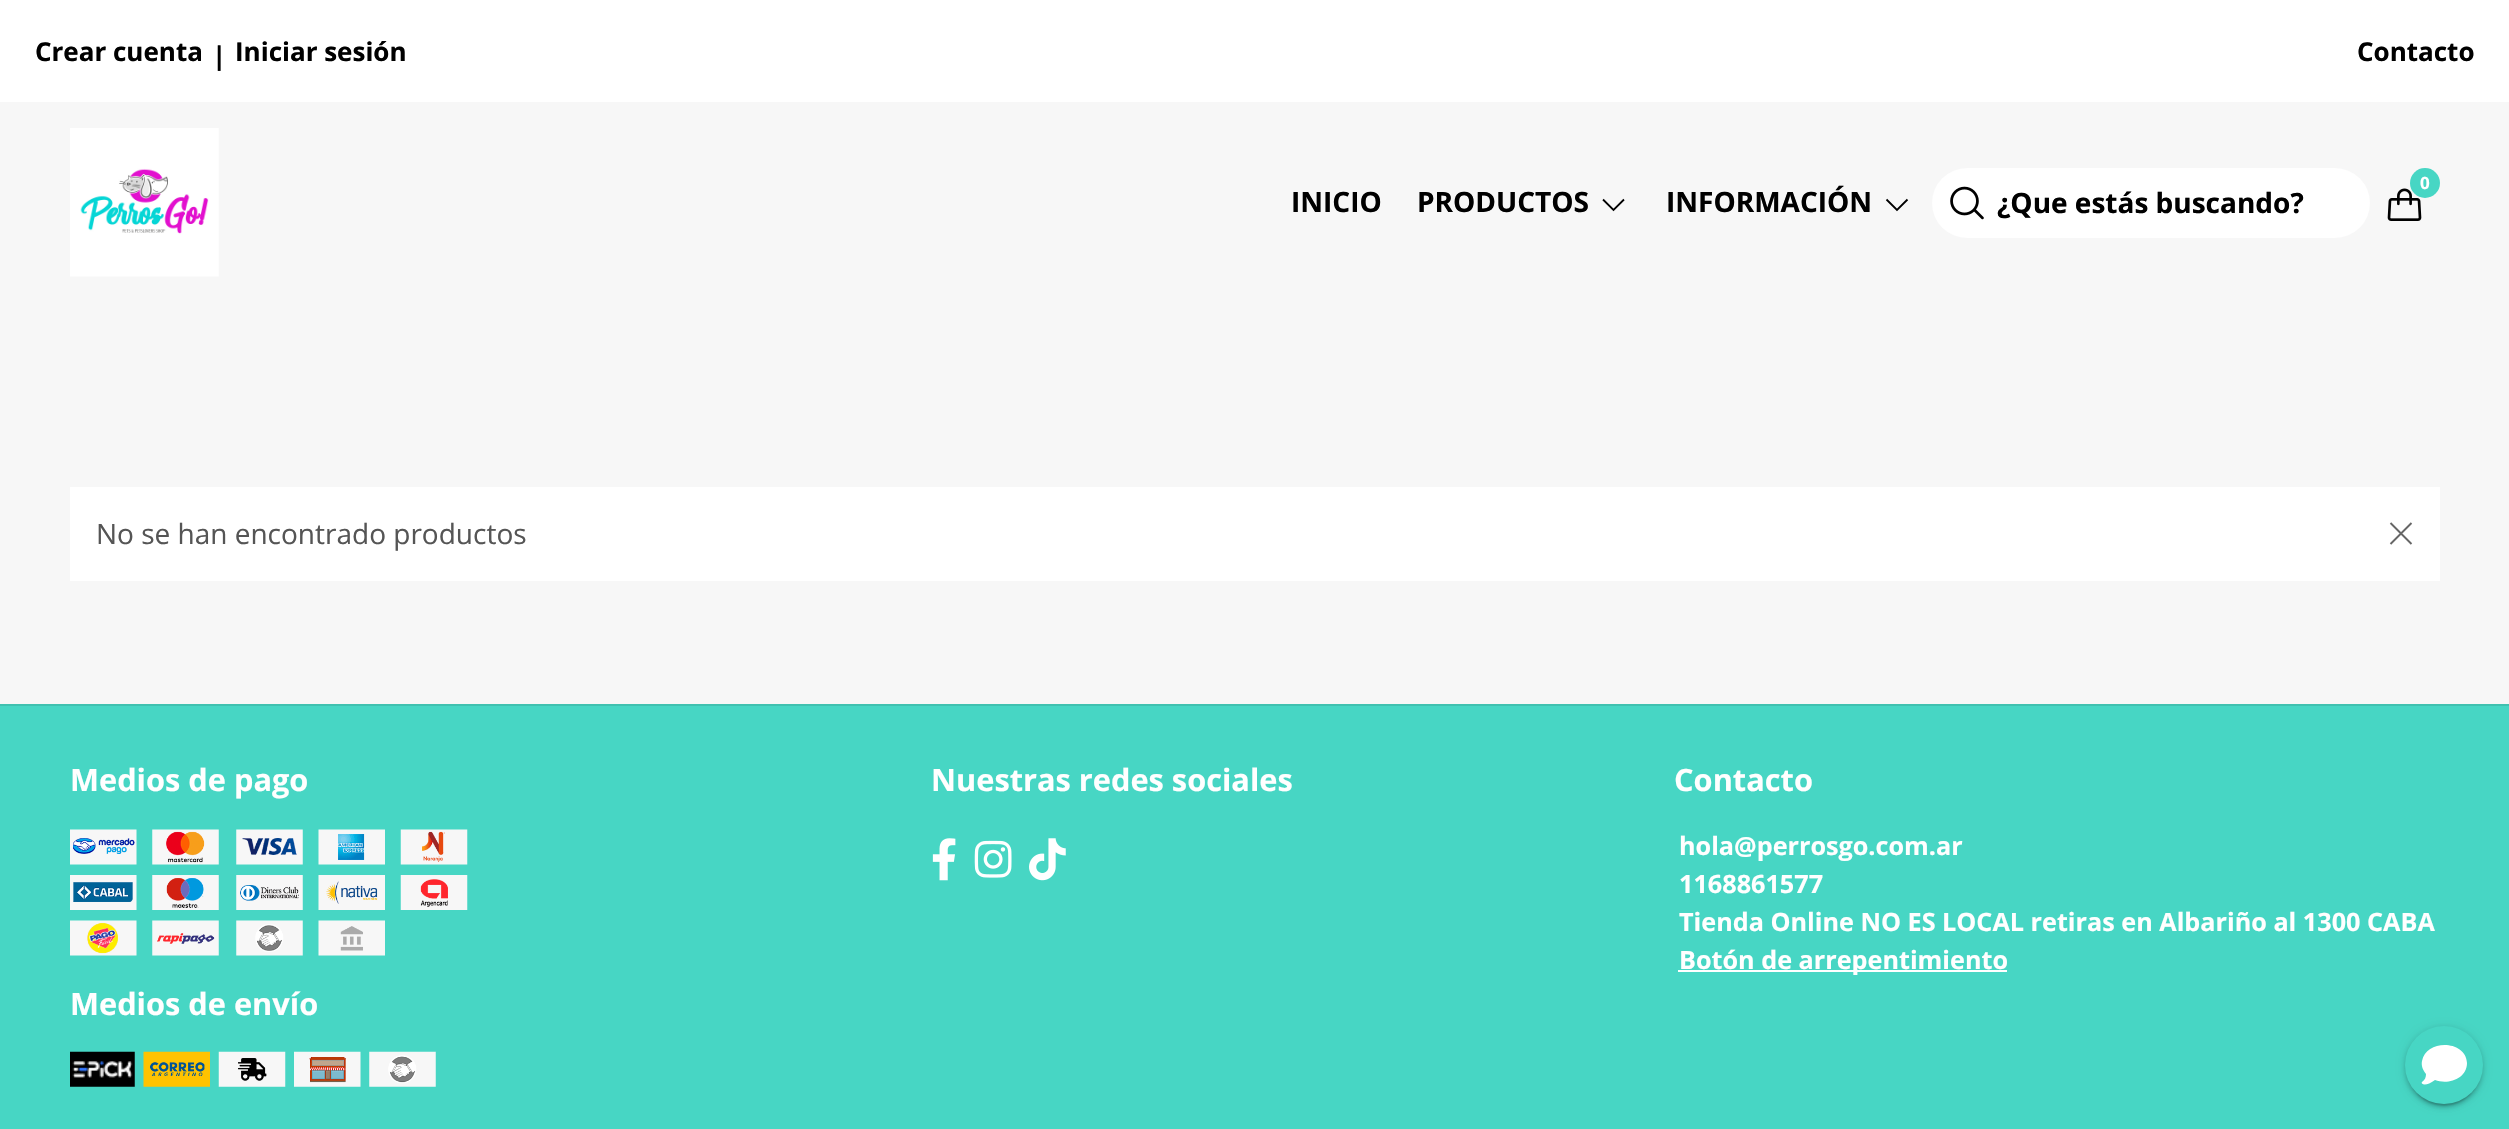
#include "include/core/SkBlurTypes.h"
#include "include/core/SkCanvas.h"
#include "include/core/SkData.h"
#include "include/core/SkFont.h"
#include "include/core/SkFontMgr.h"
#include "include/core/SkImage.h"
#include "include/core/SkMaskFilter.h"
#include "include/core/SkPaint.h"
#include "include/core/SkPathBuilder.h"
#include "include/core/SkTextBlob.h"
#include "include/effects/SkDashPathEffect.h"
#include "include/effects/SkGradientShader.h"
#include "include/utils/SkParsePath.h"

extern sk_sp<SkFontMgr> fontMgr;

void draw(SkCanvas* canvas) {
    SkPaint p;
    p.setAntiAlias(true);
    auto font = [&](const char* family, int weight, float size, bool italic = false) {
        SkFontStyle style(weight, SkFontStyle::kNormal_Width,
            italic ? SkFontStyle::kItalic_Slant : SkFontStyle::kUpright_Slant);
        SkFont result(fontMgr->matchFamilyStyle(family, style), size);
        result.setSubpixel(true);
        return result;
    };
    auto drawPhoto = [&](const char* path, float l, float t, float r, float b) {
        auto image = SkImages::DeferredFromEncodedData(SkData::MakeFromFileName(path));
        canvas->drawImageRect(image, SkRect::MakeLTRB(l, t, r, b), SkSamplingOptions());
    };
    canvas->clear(0xFFF7F7F7);
    p.setColor(0xFFFFFFFF);
    canvas->drawRect(SkRect::MakeLTRB(0, 0, 2509, 102), p);
    auto font1 = font("Open Sans", 700, 26);
    p.setColor(0xFF000000);
    {
        const struct { const char* s; float x, y; } items[] = {
            {"Crear cuenta", 35, 61},
            {"|", 212, 65},
            {"Iniciar sesión", 235, 61},
            {"Contacto", 2357, 61},
        };
        for (auto [s, x, y] : items) {
            canvas->drawString(s, x, y, font1, p);
        }
    }
    drawPhoto("media/1.png", 70, 128, 219, 277);
    drawPhoto("media/2.png", 2387, 188, 2422, 221);
    p.setColor(0xFF47D6C4);
    canvas->drawCircle(2425, 183, 15, p);
    auto font2 = font("Open Sans", 700, 17);
    p.setColor(0xFFFFFFFF);
    canvas->drawString("0", 2420, 189, font2, p);
    auto font3 = font("Open Sans", 700, 28);
    p.setColor(0xFF000000);
    canvas->drawString("INICIO", 1291, 212, font3, p);
    canvas->drawString("PRODUCTOS", 1417, 212, font3, p);
    p.setStyle(SkPaint::kStroke_Style);
    p.setStrokeWidth(1.8f);
    canvas->drawPath(SkPathBuilder().moveTo(1624, 199.5f).lineTo(1613.5f, 210).lineTo(1603, 199.5f).detach(), p);
    p.setStyle(SkPaint::kFill_Style);
    canvas->drawString("INFORMACIÓN", 1666, 212, font3, p);
    p.setStyle(SkPaint::kStroke_Style);
    canvas->drawPath(SkPathBuilder().moveTo(1907.5f, 199.5f).lineTo(1897, 210).lineTo(1886.5f, 199.5f).detach(), p);
    p.setStyle(SkPaint::kFill_Style);
    p.setColor(0xFFFFFFFF);
    canvas->drawRoundRect(SkRect::MakeLTRB(1932, 168, 2370, 238), 35, 35, p);
    drawPhoto("media/3.png", 1950, 186, 1984, 220);
    p.setColor(0xFF000000);
    canvas->drawString("¿Que estás buscando?", 1997, 213, font3, p);
    p.setColor(0xFFFFFFFF);
    canvas->drawRect(SkRect::MakeLTRB(70, 487, 2440, 581), p);
    auto font4 = font("Open Sans", 400, 28);
    p.setColor(0xFF555555);
    canvas->drawString("No se han encontrado productos", 96, 544, font4, p);
    p.setStyle(SkPaint::kStroke_Style);
    p.setStrokeWidth(1.9f);
    p.setColor(0xFF666666);
    canvas->drawPath(SkPathBuilder().moveTo(2390.5f, 523).lineTo(2411.5f, 544).moveTo(2411.5f, 523).lineTo(2390.5f, 544).detach(), p);
    p.setStyle(SkPaint::kFill_Style);
    p.setColor(0xFF47D6C4);
    canvas->drawRect(SkRect::MakeLTRB(0, 706, 2509, 1129), p);
    p.setColor(0xFF40C1B0);
    canvas->drawRect(SkRect::MakeLTRB(0, 704, 2509, 706), p);
    auto font5 = font("Open Sans", 700, 30.75f);
    p.setColor(0xFFFFFFFF);
    canvas->drawString("Medios de pago", 70, 791, font5, p);
    drawPhoto("media/4.png", 70, 829, 137, 865);
    drawPhoto("media/5.png", 152, 829, 219, 865);
    drawPhoto("media/6.png", 236, 829, 303, 865);
    drawPhoto("media/7.png", 318, 829, 385, 865);
    drawPhoto("media/8.png", 400, 829, 468, 865);
    drawPhoto("media/9.png", 70, 875, 137, 910);
    drawPhoto("media/10.png", 152, 875, 219, 910);
    drawPhoto("media/11.png", 236, 875, 303, 910);
    drawPhoto("media/12.png", 318, 875, 385, 910);
    drawPhoto("media/13.png", 400, 875, 468, 910);
    drawPhoto("media/14.png", 70, 920, 137, 956);
    drawPhoto("media/15.png", 152, 920, 219, 956);
    drawPhoto("media/16.png", 236, 920, 303, 956);
    drawPhoto("media/17.png", 318, 920, 385, 956);
    canvas->drawString("Medios de envío", 70, 1015, font5, p);
    drawPhoto("media/18.png", 70, 1051, 135, 1087);
    drawPhoto("media/19.png", 143, 1051, 210, 1087);
    drawPhoto("media/20.png", 218, 1051, 286, 1087);
    drawPhoto("media/21.png", 294, 1051, 361, 1087);
    drawPhoto("media/22.png", 369, 1051, 436, 1087);
    canvas->drawString("Nuestras redes sociales", 931, 791, font5, p);
    drawPhoto("media/23.png", 932, 838, 956, 881);
    drawPhoto("media/24.png", 974, 840, 1012, 878);
    drawPhoto("media/25.png", 1029, 838, 1066, 881);
    canvas->drawString("Contacto", 1674, 791, font5, p);
    auto font6 = font("Open Sans", 700, 25.2f);
    {
        const struct { const char* s; float x, y; } items[] = {
            {"hola@perrosgo.com.ar", 1679, 855},
            {"1168861577", 1679, 893},
            {"Tienda Online NO ES LOCAL retiras en Albariño al 1300 CABA", 1679, 931},
        };
        for (auto [s, x, y] : items) {
            canvas->drawString(s, x, y, font6, p);
        }
    }
    canvas->drawRect(SkRect::MakeLTRB(1678, 970, 2007, 972), p);
    canvas->drawString("Botón de arrepentimiento", 1679, 969, font6, p);
    p.setColor(0x33000000);
    p.setMaskFilter(SkMaskFilter::MakeBlur(kNormal_SkBlurStyle, 1));
    canvas->drawRoundRect(SkRect::MakeLTRB(2408, 1034, 2480, 1106), 36, 36, p);
    p.setMaskFilter(nullptr);
    p.setColor(0x1F000000);
    p.setMaskFilter(SkMaskFilter::MakeBlur(kNormal_SkBlurStyle, 4.5f));
    canvas->drawRoundRect(SkRect::MakeLTRB(2405, 1027, 2483, 1106), 39, 39, p);
    p.setMaskFilter(nullptr);
    p.setColor(0x24000000);
    p.setMaskFilter(SkMaskFilter::MakeBlur(kNormal_SkBlurStyle, 2));
    canvas->drawRoundRect(SkRect::MakeLTRB(2405, 1029, 2483, 1108), 39, 39, p);
    p.setMaskFilter(nullptr);
    p.setColor(0xFF47D6C4);
    canvas->drawCircle(2444, 1065, 39, p);
    p.setColor(0xFFFFFFFF);
    canvas->drawPath(SkPathBuilder().moveTo(2467, 1063).cubicTo(2467, 1079, 2448, 1085, 2435, 1080).cubicTo(2426, 1087, 2420, 1084, 2422, 1082).cubicTo(2425, 1080, 2426, 1077, 2426, 1074).cubicTo(2423, 1070, 2421, 1066, 2422, 1061).cubicTo(2426, 1039, 2466, 1040, 2467, 1063).close().detach(), p);
}
